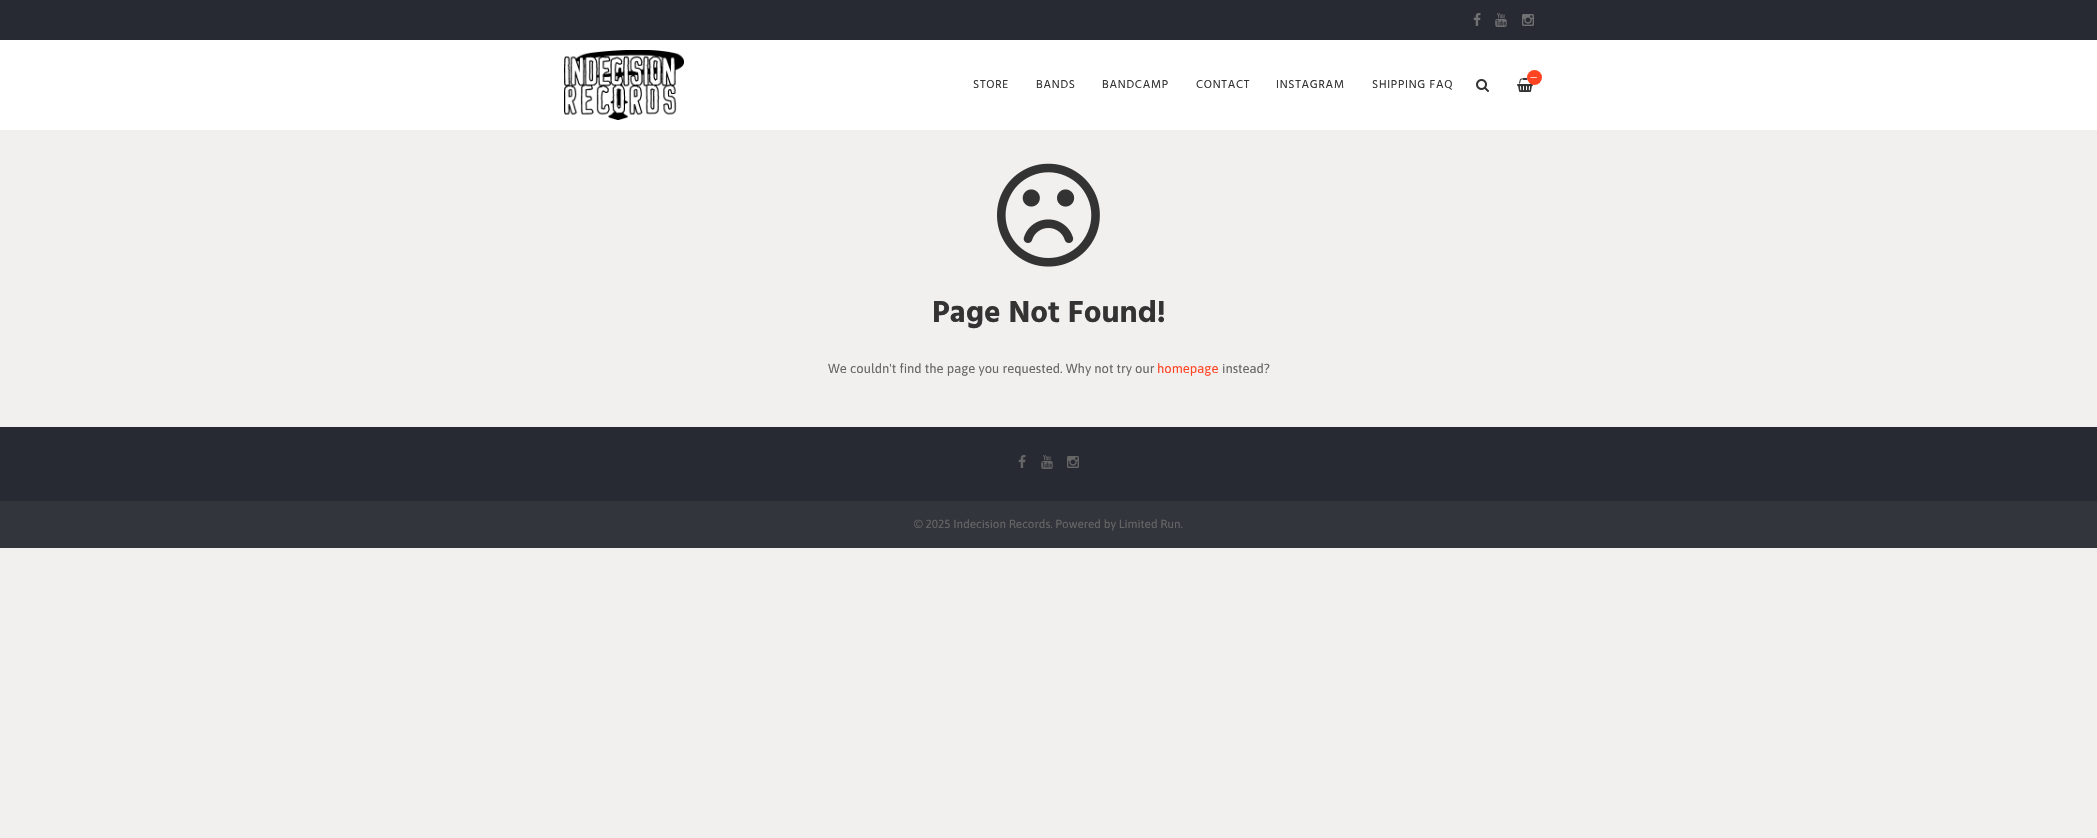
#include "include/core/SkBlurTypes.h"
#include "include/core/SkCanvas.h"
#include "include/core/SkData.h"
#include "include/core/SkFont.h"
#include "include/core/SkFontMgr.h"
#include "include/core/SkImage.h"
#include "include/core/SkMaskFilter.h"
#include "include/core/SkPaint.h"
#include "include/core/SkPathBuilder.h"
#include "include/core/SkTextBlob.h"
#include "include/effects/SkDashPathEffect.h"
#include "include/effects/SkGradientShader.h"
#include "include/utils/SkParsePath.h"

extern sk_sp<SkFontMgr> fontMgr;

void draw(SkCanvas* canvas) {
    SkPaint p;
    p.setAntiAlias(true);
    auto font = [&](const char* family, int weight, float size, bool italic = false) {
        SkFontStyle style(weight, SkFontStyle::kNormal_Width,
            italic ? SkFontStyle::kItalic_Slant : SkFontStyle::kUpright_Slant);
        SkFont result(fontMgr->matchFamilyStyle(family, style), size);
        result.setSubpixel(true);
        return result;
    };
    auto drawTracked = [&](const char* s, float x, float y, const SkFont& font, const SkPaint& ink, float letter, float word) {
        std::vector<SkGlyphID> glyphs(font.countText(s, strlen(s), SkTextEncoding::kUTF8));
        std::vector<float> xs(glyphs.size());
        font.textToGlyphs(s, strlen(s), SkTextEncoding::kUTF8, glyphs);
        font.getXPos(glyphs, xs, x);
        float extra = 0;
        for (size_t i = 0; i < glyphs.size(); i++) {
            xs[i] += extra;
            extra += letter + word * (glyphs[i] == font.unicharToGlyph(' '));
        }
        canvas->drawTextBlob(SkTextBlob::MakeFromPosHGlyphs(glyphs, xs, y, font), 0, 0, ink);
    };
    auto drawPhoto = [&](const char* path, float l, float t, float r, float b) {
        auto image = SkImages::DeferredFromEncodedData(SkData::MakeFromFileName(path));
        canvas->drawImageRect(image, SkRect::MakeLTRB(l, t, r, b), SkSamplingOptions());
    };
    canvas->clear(0xFFF2EFEF);
    p.setColor(0xFF272A32);
    canvas->drawRect(SkRect::MakeLTRB(0, 0, 2097, 40), p);
    drawPhoto("media/1.png", 1473, 13, 1481, 26);
    drawPhoto("media/2.png", 1495, 13, 1507, 27);
    drawPhoto("media/3.png", 1522, 14, 1534, 26);
    p.setColor(0xFFFFFFFF);
    canvas->drawRect(SkRect::MakeLTRB(0, 40, 2097, 130), p);
    drawPhoto("media/4.png", 564, 50, 684, 120);
    drawPhoto("media/5.png", 1517, 77, 1533, 92);
    p.setColor(0xFFFF4422);
    canvas->drawCircle(1534.5f, 77.5f, 7.5f, p);
    auto font1 = font("Hind", 400, 9);
    p.setColor(0xFFFFFFFF);
    drawTracked("—", 1530, 80, font1, p, 0.75f, 0);
    drawPhoto("media/6.png", 1476, 79, 1489, 92);
    auto font2 = font("Hind", 400, 11.7f);
    p.setColor(0xFF333333);
    {
        const struct { const char* s; float x, y; } items[] = {
            {"STORE", 973, 88},
            {"BANDS", 1036, 88},
            {"BANDCAMP", 1102, 88},
            {"CONTACT", 1196, 88},
            {"INSTAGRAM", 1276, 88},
            {"SHIPPING FAQ", 1372, 88},
        };
        for (auto [s, x, y] : items) {
            drawTracked(s, x, y, font2, p, 0.75f, 0);
        }
    }
    drawPhoto("media/7.png", 997, 163, 1100, 267);
    auto font3 = font("Hind", 700, 31.25f);
    canvas->drawString("Page Not Found!", 932, 322, font3, p);
    auto font4 = font("Asap", 400, 13);
    p.setColor(0xFF666666);
    canvas->drawString("We couldn't find the page you requested. Why not try our", 828, 373, font4, p);
    p.setColor(0xFFFF4422);
    canvas->drawString("homepage", 1157, 373, font4, p);
    p.setColor(0xFF666666);
    canvas->drawString("instead?", 1222, 373, font4, p);
    p.setColor(0xFF272A32);
    canvas->drawRect(SkRect::MakeLTRB(0, 427, 2097, 501), p);
    drawPhoto("media/8.png", 1018, 455, 1026, 468);
    drawPhoto("media/9.png", 1041, 455, 1053, 469);
    drawPhoto("media/10.png", 1067, 456, 1079, 468);
    p.setColor(0xFF32353C);
    canvas->drawRect(SkRect::MakeLTRB(0, 501, 2097, 548), p);
    auto font5 = font("Asap", 400, 11.7f);
    p.setColor(0xFF666666);
    canvas->drawString("© 2025 Indecision Records. Powered by Limited Run.", 914, 528, font5, p);
}
